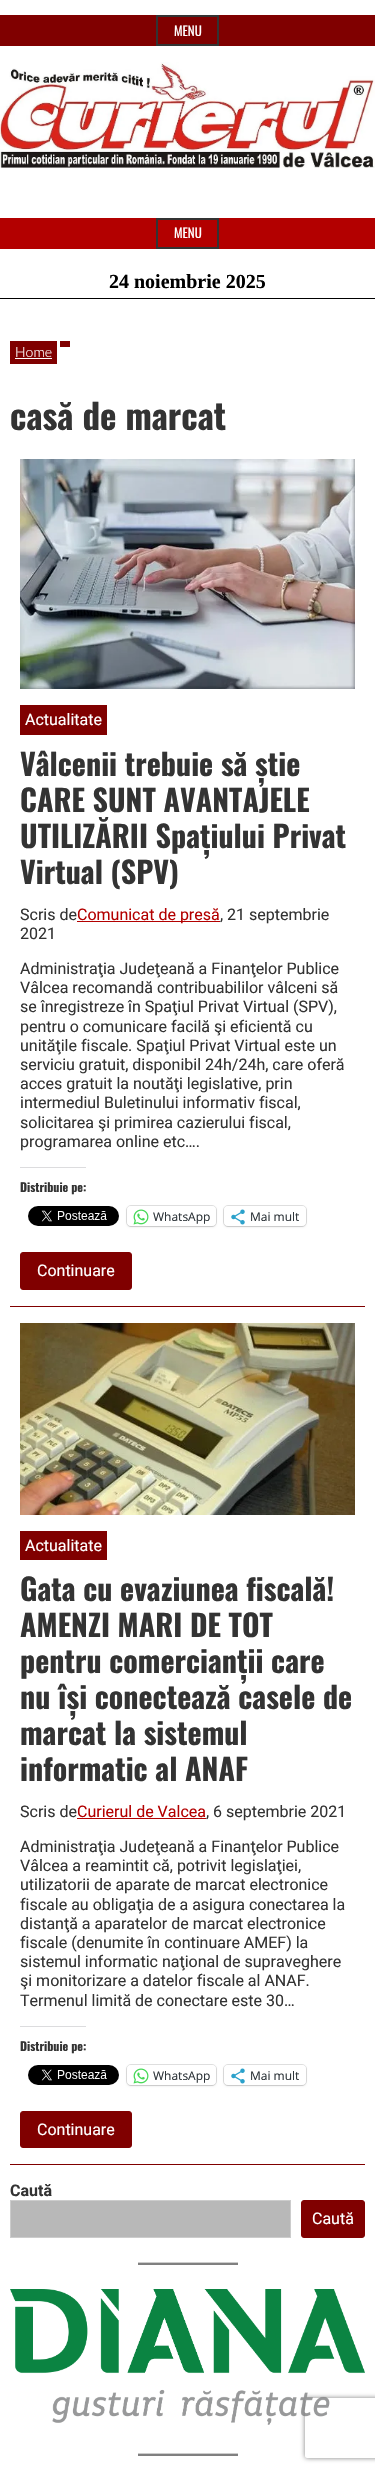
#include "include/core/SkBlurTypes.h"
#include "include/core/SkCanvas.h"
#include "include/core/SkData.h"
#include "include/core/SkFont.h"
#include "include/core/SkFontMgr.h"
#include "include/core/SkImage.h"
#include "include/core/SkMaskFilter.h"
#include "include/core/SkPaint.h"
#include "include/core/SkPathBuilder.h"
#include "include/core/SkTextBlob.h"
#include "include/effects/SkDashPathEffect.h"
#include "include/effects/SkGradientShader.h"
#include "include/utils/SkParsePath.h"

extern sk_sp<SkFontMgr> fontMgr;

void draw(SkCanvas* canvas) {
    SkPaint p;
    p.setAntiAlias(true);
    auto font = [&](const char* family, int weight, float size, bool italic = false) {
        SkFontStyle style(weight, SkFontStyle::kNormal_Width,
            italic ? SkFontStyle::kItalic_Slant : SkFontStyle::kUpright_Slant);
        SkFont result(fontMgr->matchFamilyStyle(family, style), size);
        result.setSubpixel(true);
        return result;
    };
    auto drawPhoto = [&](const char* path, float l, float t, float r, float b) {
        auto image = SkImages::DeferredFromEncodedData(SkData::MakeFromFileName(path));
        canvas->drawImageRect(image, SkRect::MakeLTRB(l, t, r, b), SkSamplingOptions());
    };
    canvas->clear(0xFFFFFFFF);
    p.setColor(0xFF800000);
    canvas->drawRect(SkRect::MakeLTRB(0, 15, 375, 46), p);
    p.setStyle(SkPaint::kStroke_Style);
    p.setStrokeWidth(2);
    p.setColor(0xFF333333);
    canvas->drawRect(SkRect::MakeLTRB(157, 16, 218, 45), p);
    auto font1 = font("Oswald", 400, 13);
    p.setStyle(SkPaint::kFill_Style);
    p.setColor(0xFFFFFFFF);
    canvas->drawString("MENU", 174, 36, font1, p);
    drawPhoto("media/1.png", 0, 62, 375, 168);
    p.setColor(0xFFB30000);
    canvas->drawRect(SkRect::MakeLTRB(0, 218, 375, 249), p);
    p.setStyle(SkPaint::kStroke_Style);
    p.setColor(0xFF333333);
    canvas->drawRect(SkRect::MakeLTRB(157, 219, 218, 248), p);
    p.setStyle(SkPaint::kFill_Style);
    p.setColor(0xFFFFFFFF);
    canvas->drawString("MENU", 174, 238, font1, p);
    p.setColor(0xFF000000);
    canvas->drawRect(SkRect::MakeLTRB(0, 298, 375, 299), p);
    auto font2 = font("Liberation Serif", 700, 20);
    canvas->drawString("24 noiembrie 2025", 109, 288, font2, p);
    p.setColor(0xFF800000);
    canvas->drawRect(SkRect::MakeLTRB(60, 341, 70, 347), p);
    canvas->drawRect(SkRect::MakeLTRB(10, 341, 57, 364), p);
    auto font3 = font("Lato", 300, 14);
    p.setColor(0xFFFFFFFF);
    canvas->drawString("Home", 15, 357, font3, p);
    canvas->drawRect(SkRect::MakeLTRB(15, 358, 52, 359), p);
    auto font4 = font("Oswald", 700, 35);
    p.setColor(0xFF333333);
    canvas->drawString("casă de marcat", 10, 430, font4, p);
    p.setColor(0xFF800000);
    canvas->drawRect(SkRect::MakeLTRB(10, 1306, 365, 1307), p);
    drawPhoto("media/2.png", 20, 459, 355, 689);
    canvas->drawRect(SkRect::MakeLTRB(20, 705, 107, 735), p);
    auto font5 = font("Roboto", 400, 16);
    p.setColor(0xFFFFFFFF);
    canvas->drawString("Actualitate", 25, 725, font5, p);
    auto font6 = font("Oswald", 700, 30);
    p.setColor(0xFF333333);
    {
        const struct { const char* s; float x, y; } items[] = {
            {"Vâlcenii trebuie să știe", 20, 776},
            {"CARE SUNT AVANTAJELE", 20, 812},
            {"UTILIZĂRII Spațiului Privat", 20, 848},
            {"Virtual (SPV)", 20, 884},
        };
        for (auto [s, x, y] : items) {
            canvas->drawString(s, x, y, font6, p);
        }
    }
    canvas->drawString("Scris de", 20, 920, font5, p);
    p.setColor(0xFFB30000);
    canvas->drawRect(SkRect::MakeLTRB(77, 921, 220, 922), p);
    canvas->drawString("Comunicat de presă", 77, 920, font5, p);
    p.setColor(0xFF333333);
    {
        const struct { const char* s; float x, y; } items[] = {
            {", 21 septembrie", 220, 920},
            {"2021", 20, 939},
            {"Administraţia Judeţeană a Finanţelor Publice", 20, 974},
            {"Vâlcea recomandă contribuabililor vâlceni să", 20, 993},
            {"se înregistreze în Spaţiul Privat Virtual (SPV),", 20, 1012},
            {"pentru o comunicare facilă şi eficientă cu", 20, 1032},
            {"unităţile fiscale. Spaţiul Privat Virtual este un", 20, 1051},
            {"serviciu gratuit, disponibil 24h/24h, care oferă", 20, 1070},
            {"acces gratuit la noutăţi legislative, prin", 20, 1089},
            {"intermediul Buletinului informativ fiscal,", 20, 1108},
            {"solicitarea şi primirea cazierului fiscal,", 20, 1128},
            {"programarea online etc….", 20, 1147},
        };
        for (auto [s, x, y] : items) {
            canvas->drawString(s, x, y, font5, p);
        }
    }
    p.setColor(0xFFDCDCDE);
    canvas->drawRect(SkRect::MakeLTRB(20, 1167, 86, 1168), p);
    auto font7 = font("Oswald", 700, 12);
    p.setColor(0xFF333333);
    canvas->drawString("Distribuie pe:", 20, 1192, font7, p);
    drawPhoto("media/3.png", 28, 1206, 119, 1226);
    p.setStyle(SkPaint::kStroke_Style);
    p.setStrokeWidth(1);
    p.setColor(0xFFE0E0E0);
    canvas->drawRoundRect(SkRect::MakeLTRB(126.5f, 1205.5f, 216.5f, 1226.5f), 4.5f, 4.5f, p);
    p.setStyle(SkPaint::kFill_Style);
    p.setColor(0x1F000000);
    p.setMaskFilter(SkMaskFilter::MakeBlur(kNormal_SkBlurStyle, 1));
    canvas->drawRoundRect(SkRect::MakeLTRB(127, 1207, 216, 1227), 4, 4, p);
    p.setMaskFilter(nullptr);
    p.setColor(0xFFFFFFFF);
    canvas->drawRoundRect(SkRect::MakeLTRB(127, 1206, 216, 1226), 4, 4, p);
    drawPhoto("media/4.png", 133, 1209, 149, 1225);
    auto font8 = font("Open Sans", 400, 12);
    p.setColor(0xFF2C3338);
    canvas->drawString("WhatsApp", 153, 1221, font8, p);
    p.setStyle(SkPaint::kStroke_Style);
    p.setColor(0xFFE0E0E0);
    canvas->drawRoundRect(SkRect::MakeLTRB(223.5f, 1205.5f, 306.5f, 1226.5f), 4.5f, 4.5f, p);
    p.setStyle(SkPaint::kFill_Style);
    p.setColor(0x1F000000);
    p.setMaskFilter(SkMaskFilter::MakeBlur(kNormal_SkBlurStyle, 1));
    canvas->drawRoundRect(SkRect::MakeLTRB(224, 1207, 306, 1227), 4, 4, p);
    p.setMaskFilter(nullptr);
    p.setColor(0xFFFFFFFF);
    canvas->drawRoundRect(SkRect::MakeLTRB(224, 1206, 306, 1226), 4, 4, p);
    drawPhoto("media/5.png", 231, 1209, 245, 1225);
    p.setColor(0xFF2C3338);
    canvas->drawString("Mai mult", 250, 1221, font8, p);
    p.setColor(0xFF800000);
    canvas->drawRoundRect(SkRect::MakeLTRB(20.5f, 1252.5f, 131.5f, 1289.5f), 2.5f, 2.5f, p);
    p.setStyle(SkPaint::kStroke_Style);
    canvas->drawRoundRect(SkRect::MakeLTRB(20.5f, 1252.5f, 131.5f, 1289.5f), 2.5f, 2.5f, p);
    p.setStyle(SkPaint::kFill_Style);
    p.setColor(0xFFFFFFFF);
    canvas->drawString("Continuare", 37, 1276, font5, p);
    p.setColor(0xFF800000);
    canvas->drawRect(SkRect::MakeLTRB(10, 2164, 365, 2165), p);
    drawPhoto("media/6.png", 20, 1323, 355, 1515);
    canvas->drawRect(SkRect::MakeLTRB(20, 1531, 107, 1560), p);
    p.setColor(0xFFFFFFFF);
    canvas->drawString("Actualitate", 25, 1551, font5, p);
    p.setColor(0xFF333333);
    {
        const struct { const char* s; float x, y; } items[] = {
            {"Gata cu evaziunea fiscală!", 20, 1601},
            {"AMENZI MARI DE TOT", 20, 1637},
            {"pentru comercianții care", 20, 1673},
            {"nu își conectează casele de", 20, 1709},
            {"marcat la sistemul", 20, 1745},
            {"informatic al ANAF", 20, 1781},
        };
        for (auto [s, x, y] : items) {
            canvas->drawString(s, x, y, font6, p);
        }
    }
    canvas->drawString("Scris de", 20, 1817, font5, p);
    p.setColor(0xFFB30000);
    canvas->drawString("Curierul de Valcea", 77, 1817, font5, p);
    canvas->drawRect(SkRect::MakeLTRB(77, 1818, 206, 1819), p);
    p.setColor(0xFF333333);
    {
        const struct { const char* s; float x, y; } items[] = {
            {", 6 septembrie 2021", 206, 1817},
            {"Administraţia Judeţeană a Finanţelor Publice", 20, 1852},
            {"Vâlcea a reamintit că, potrivit legislaţiei,", 20, 1871},
            {"utilizatorii de aparate de marcat electronice", 20, 1890},
            {"fiscale au obligaţia de a asigura conectarea la", 20, 1910},
            {"distanţă a aparatelor de marcat electronice", 20, 1929},
            {"fiscale (denumite în continuare AMEF) la", 20, 1948},
            {"sistemul informatic naţional de supraveghere", 20, 1967},
            {"şi monitorizare a datelor fiscale al ANAF.", 20, 1986},
            {"Termenul limită de conectare este 30…", 20, 2006},
        };
        for (auto [s, x, y] : items) {
            canvas->drawString(s, x, y, font5, p);
        }
    }
    p.setColor(0xFFDCDCDE);
    canvas->drawRect(SkRect::MakeLTRB(20, 2026, 86, 2027), p);
    p.setColor(0xFF333333);
    canvas->drawString("Distribuie pe:", 20, 2051, font7, p);
    drawPhoto("media/3.png", 28, 2065, 119, 2085);
    p.setStyle(SkPaint::kStroke_Style);
    p.setColor(0xFFE0E0E0);
    canvas->drawRoundRect(SkRect::MakeLTRB(126.5f, 2064.5f, 216.5f, 2085.5f), 4.5f, 4.5f, p);
    p.setStyle(SkPaint::kFill_Style);
    p.setColor(0x1F000000);
    p.setMaskFilter(SkMaskFilter::MakeBlur(kNormal_SkBlurStyle, 1));
    canvas->drawRoundRect(SkRect::MakeLTRB(127, 2066, 216, 2086), 4, 4, p);
    p.setMaskFilter(nullptr);
    p.setColor(0xFFFFFFFF);
    canvas->drawRoundRect(SkRect::MakeLTRB(127, 2065, 216, 2085), 4, 4, p);
    drawPhoto("media/4.png", 133, 2068, 149, 2084);
    p.setColor(0xFF2C3338);
    canvas->drawString("WhatsApp", 153, 2080, font8, p);
    p.setStyle(SkPaint::kStroke_Style);
    p.setColor(0xFFE0E0E0);
    canvas->drawRoundRect(SkRect::MakeLTRB(223.5f, 2064.5f, 306.5f, 2085.5f), 4.5f, 4.5f, p);
    p.setStyle(SkPaint::kFill_Style);
    p.setColor(0x1F000000);
    p.setMaskFilter(SkMaskFilter::MakeBlur(kNormal_SkBlurStyle, 1));
    canvas->drawRoundRect(SkRect::MakeLTRB(224, 2066, 306, 2086), 4, 4, p);
    p.setMaskFilter(nullptr);
    p.setColor(0xFFFFFFFF);
    canvas->drawRoundRect(SkRect::MakeLTRB(224, 2065, 306, 2085), 4, 4, p);
    drawPhoto("media/5.png", 231, 2068, 245, 2084);
    p.setColor(0xFF2C3338);
    canvas->drawString("Mai mult", 250, 2080, font8, p);
    p.setColor(0xFF800000);
    canvas->drawRoundRect(SkRect::MakeLTRB(20.5f, 2111.5f, 131.5f, 2147.5f), 2.5f, 2.5f, p);
    p.setStyle(SkPaint::kStroke_Style);
    canvas->drawRoundRect(SkRect::MakeLTRB(20.5f, 2111.5f, 131.5f, 2147.5f), 2.5f, 2.5f, p);
    p.setStyle(SkPaint::kFill_Style);
    p.setColor(0xFFFFFFFF);
    canvas->drawString("Continuare", 37, 2135, font5, p);
    auto font9 = font("Roboto", 700, 16);
    p.setColor(0xFF333333);
    canvas->drawString("Caută", 10, 2196, font9, p);
    p.setColor(0xFFB8B8B8);
    canvas->drawRect(SkRect::MakeLTRB(10.5f, 2200.5f, 290.5f, 2237.5f), p);
    p.setStyle(SkPaint::kStroke_Style);
    p.setColor(0xFFCCCCCC);
    canvas->drawRect(SkRect::MakeLTRB(10.5f, 2200.5f, 290.5f, 2237.5f), p);
    p.setStyle(SkPaint::kFill_Style);
    p.setColor(0xFF800000);
    canvas->drawRoundRect(SkRect::MakeLTRB(301.5f, 2200.5f, 364.5f, 2237.5f), 2.5f, 2.5f, p);
    p.setStyle(SkPaint::kStroke_Style);
    canvas->drawRoundRect(SkRect::MakeLTRB(301.5f, 2200.5f, 364.5f, 2237.5f), 2.5f, 2.5f, p);
    p.setStyle(SkPaint::kFill_Style);
    p.setColor(0xFFFFFFFF);
    canvas->drawString("Caută", 312, 2224, font5, p);
    p.setColor(0xFFCCCCCC);
    canvas->drawRect(SkRect::MakeLTRB(138, 2262, 238, 2263), p);
    p.setColor(0xFF808080);
    canvas->drawRect(SkRect::MakeLTRB(138, 2263, 238, 2265), p);
    drawPhoto("media/7.png", 10, 2289, 365, 2425);
    p.setColor(0xFFCCCCCC);
    canvas->drawRect(SkRect::MakeLTRB(138, 2453, 238, 2454), p);
    p.setColor(0xFF808080);
    canvas->drawRect(SkRect::MakeLTRB(138, 2454, 238, 2456), p);
    canvas->save();
    canvas->clipPath(SkPathBuilder(SkPathFillType::kEvenOdd).moveTo(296, 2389).lineTo(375, 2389).lineTo(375, 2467).lineTo(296, 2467).close().moveTo(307, 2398).lineTo(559, 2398).cubicTo(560, 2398, 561, 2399, 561, 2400).lineTo(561, 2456).cubicTo(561, 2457, 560, 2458, 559, 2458).lineTo(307, 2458).cubicTo(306, 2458, 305, 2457, 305, 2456).lineTo(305, 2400).cubicTo(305, 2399, 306, 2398, 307, 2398).close().detach(), true);
    p.setMaskFilter(SkMaskFilter::MakeBlur(kNormal_SkBlurStyle, 2.5f));
    canvas->drawRoundRect(SkRect::MakeLTRB(305, 2398, 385, 2458), 2, 2, p);
    p.setMaskFilter(nullptr);
    canvas->restore();
}
